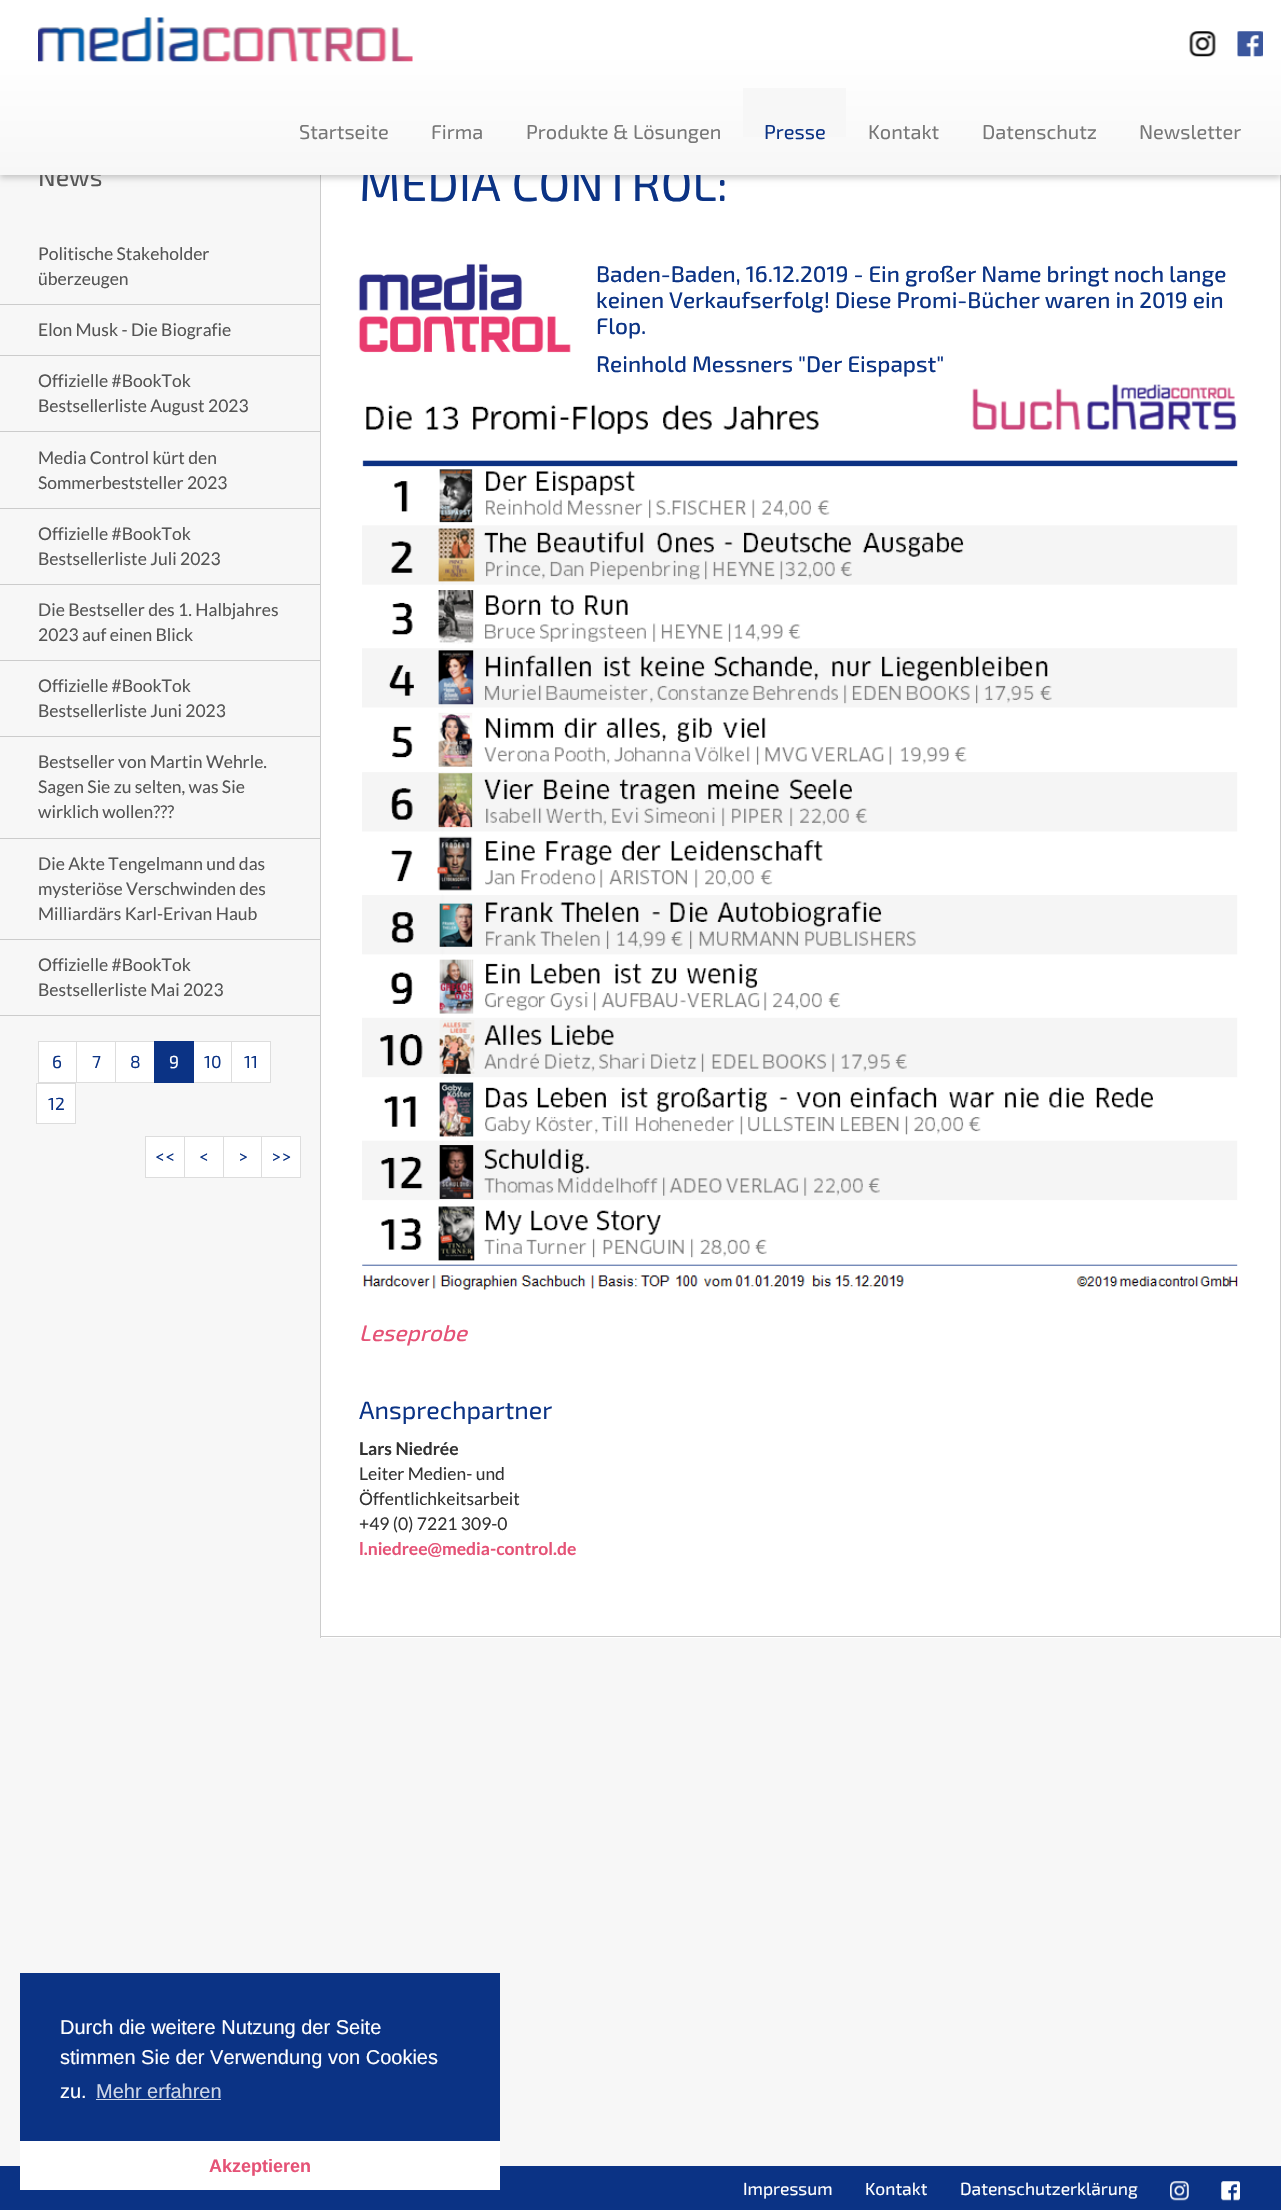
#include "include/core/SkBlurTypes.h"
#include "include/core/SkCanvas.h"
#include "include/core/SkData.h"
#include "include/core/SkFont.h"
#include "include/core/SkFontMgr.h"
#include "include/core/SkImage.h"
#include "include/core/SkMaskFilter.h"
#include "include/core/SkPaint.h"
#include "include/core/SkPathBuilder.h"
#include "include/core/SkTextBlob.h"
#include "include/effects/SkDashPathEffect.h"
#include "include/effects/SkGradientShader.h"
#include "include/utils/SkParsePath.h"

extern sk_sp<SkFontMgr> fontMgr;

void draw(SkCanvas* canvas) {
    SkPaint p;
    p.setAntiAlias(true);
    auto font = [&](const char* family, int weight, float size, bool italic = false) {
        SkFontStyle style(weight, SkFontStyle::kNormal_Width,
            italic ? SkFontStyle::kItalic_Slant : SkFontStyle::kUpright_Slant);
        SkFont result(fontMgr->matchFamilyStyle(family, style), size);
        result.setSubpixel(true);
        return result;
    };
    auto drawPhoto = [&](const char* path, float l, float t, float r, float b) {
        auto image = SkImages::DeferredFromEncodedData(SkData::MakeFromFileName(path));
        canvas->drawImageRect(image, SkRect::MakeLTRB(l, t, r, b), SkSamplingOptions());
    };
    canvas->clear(0xFFF7F7F7);
    {
        const struct { float l, t, r, b; SkColor color; } items[] = {
            {321, 175, 1280, 1638, 0xFFFFFFFF},
            {1280, 175, 1281, 1638, 0xFFCCCCCC},
            {320, 1636, 1281, 1637, 0xFFCCCCCC},
            {320, 175, 321, 1638, 0xFFCCCCCC},
        };
        for (auto [l, t, r, b, color] : items) {
            p.setColor(color);
            canvas->drawRect(SkRect::MakeLTRB(l, t, r, b), p);
        }
    }
    p.setColor(0x33000000);
    p.setMaskFilter(SkMaskFilter::MakeBlur(kNormal_SkBlurStyle, 3));
    canvas->drawRect(SkRect::MakeLTRB(0, 3, 1281, 178), p);
    p.setMaskFilter(nullptr);
    auto font1 = font("Exo 2", 400, 25);
    p.setColor(0xFF555555);
    canvas->drawString("News", 38, 186, font1, p);
    auto font2 = font("Exo 2", 400, 47.5f);
    p.setColor(0xFF0B3385);
    canvas->drawString("MEDIA CONTROL:", 359, 201, font2, p);
    {
        const SkColor colors[] = {0xFFF7F7F7, 0xFFFFFFFF, 0xFFFFFFFF};
        const float stops[] = {0, 0.7f, 1};
        const SkPoint ends[] = {{641, 175}, {641, 0}};
        p.setShader(SkGradientShader::MakeLinear(ends, colors, stops, 3, SkTileMode::kClamp));
        p.setAlpha(255);
    }
    canvas->drawRect(SkRect::MakeLTRB(0, 0, 1281, 175), p);
    drawPhoto("media/1.png", 38, 17, 413, 62);
    drawPhoto("media/2.png", 1189, 31, 1216, 57);
    drawPhoto("media/3.png", 1237, 31, 1263, 57);
    auto font3 = font("Exo 2", 400, 20);
    p.setShader(nullptr);
    p.setColor(0xFF777777);
    {
        const struct { const char* s; float x, y; } items[] = {
            {"Startseite", 299, 139},
            {"Firma", 431, 139},
            {"Produkte & Lösungen", 526, 139},
        };
        for (auto [s, x, y] : items) {
            canvas->drawString(s, x, y, font3, p);
        }
    }
    p.setColor(0xFFF7F7F7);
    canvas->drawRect(SkRect::MakeLTRB(743, 88, 846, 137), p);
    p.setColor(0xFF0B3385);
    canvas->drawString("Presse", 764, 139, font3, p);
    p.setColor(0xFF777777);
    {
        const struct { const char* s; float x, y; } items[] = {
            {"Kontakt", 868, 139},
            {"Datenschutz", 982, 139},
            {"Newsletter", 1139, 139},
        };
        for (auto [s, x, y] : items) {
            canvas->drawString(s, x, y, font3, p);
        }
    }
    p.setColor(0xFFCCCCCC);
    canvas->drawRect(SkRect::MakeLTRB(0, 304, 320, 305), p);
    auto font4 = font("Lato", 400, 17.5f);
    p.setColor(0xFF555555);
    canvas->drawString("Politische Stakeholder", 38, 260, font4, p);
    canvas->drawString("überzeugen", 38, 285, font4, p);
    p.setColor(0xFFCCCCCC);
    canvas->drawRect(SkRect::MakeLTRB(0, 355, 320, 356), p);
    p.setColor(0xFF555555);
    canvas->drawString("Elon Musk - Die Biografie", 38, 336, font4, p);
    p.setColor(0xFFCCCCCC);
    canvas->drawRect(SkRect::MakeLTRB(0, 431, 320, 432), p);
    p.setColor(0xFF555555);
    canvas->drawString("Offizielle #BookTok", 38, 387, font4, p);
    canvas->drawString("Bestsellerliste August 2023", 38, 412, font4, p);
    p.setColor(0xFFCCCCCC);
    canvas->drawRect(SkRect::MakeLTRB(0, 508, 320, 509), p);
    p.setColor(0xFF555555);
    canvas->drawString("Media Control kürt den", 38, 464, font4, p);
    canvas->drawString("Sommerbeststeller 2023", 38, 489, font4, p);
    p.setColor(0xFFCCCCCC);
    canvas->drawRect(SkRect::MakeLTRB(0, 584, 320, 585), p);
    p.setColor(0xFF555555);
    canvas->drawString("Offizielle #BookTok", 38, 540, font4, p);
    canvas->drawString("Bestsellerliste Juli 2023", 38, 565, font4, p);
    p.setColor(0xFFCCCCCC);
    canvas->drawRect(SkRect::MakeLTRB(0, 660, 320, 661), p);
    p.setColor(0xFF555555);
    canvas->drawString("Die Bestseller des 1. Halbjahres", 38, 616, font4, p);
    canvas->drawString("2023 auf einen Blick", 38, 641, font4, p);
    p.setColor(0xFFCCCCCC);
    canvas->drawRect(SkRect::MakeLTRB(0, 736, 320, 737), p);
    p.setColor(0xFF555555);
    canvas->drawString("Offizielle #BookTok", 38, 692, font4, p);
    canvas->drawString("Bestsellerliste Juni 2023", 38, 717, font4, p);
    p.setColor(0xFFCCCCCC);
    canvas->drawRect(SkRect::MakeLTRB(0, 838, 320, 839), p);
    p.setColor(0xFF555555);
    {
        const struct { const char* s; float x, y; } items[] = {
            {"Bestseller von Martin Wehrle.", 38, 768},
            {"Sagen Sie zu selten, was Sie", 38, 793},
            {"wirklich wollen?\077?", 38, 818},
        };
        for (auto [s, x, y] : items) {
            canvas->drawString(s, x, y, font4, p);
        }
    }
    p.setColor(0xFFCCCCCC);
    canvas->drawRect(SkRect::MakeLTRB(0, 939, 320, 940), p);
    p.setColor(0xFF555555);
    {
        const struct { const char* s; float x, y; } items[] = {
            {"Die Akte Tengelmann und das", 38, 870},
            {"mysteriöse Verschwinden des", 38, 895},
            {"Milliardärs Karl-Erivan Haub", 38, 920},
        };
        for (auto [s, x, y] : items) {
            canvas->drawString(s, x, y, font4, p);
        }
    }
    p.setColor(0xFFCCCCCC);
    canvas->drawRect(SkRect::MakeLTRB(0, 1015, 320, 1016), p);
    p.setColor(0xFF555555);
    canvas->drawString("Offizielle #BookTok", 38, 971, font4, p);
    canvas->drawString("Bestsellerliste Mai 2023", 38, 996, font4, p);
    p.setColor(0xFFFFFFFF);
    canvas->drawRect(SkRect::MakeLTRB(39, 1042, 76, 1082), p);
    p.setStyle(SkPaint::kStroke_Style);
    p.setStrokeWidth(1);
    p.setColor(0xFFDDDDDD);
    canvas->drawRect(SkRect::MakeLTRB(38.5f, 1041.5f, 77.5f, 1082.5f), p);
    auto font5 = font("Exo 2", 400, 17.5f);
    p.setStyle(SkPaint::kFill_Style);
    p.setColor(0xFF0B3385);
    canvas->drawString("6", 52, 1068, font5, p);
    p.setColor(0xFFFFFFFF);
    canvas->drawRect(SkRect::MakeLTRB(76.5f, 1041.5f, 115.5f, 1082.5f), p);
    p.setStyle(SkPaint::kStroke_Style);
    p.setColor(0xFFDDDDDD);
    canvas->drawRect(SkRect::MakeLTRB(76.5f, 1041.5f, 115.5f, 1082.5f), p);
    p.setStyle(SkPaint::kFill_Style);
    p.setColor(0xFF0B3385);
    canvas->drawString("7", 92, 1068, font5, p);
    p.setColor(0xFFFFFFFF);
    canvas->drawRect(SkRect::MakeLTRB(115.5f, 1041.5f, 154.5f, 1082.5f), p);
    p.setStyle(SkPaint::kStroke_Style);
    p.setColor(0xFFDDDDDD);
    canvas->drawRect(SkRect::MakeLTRB(115.5f, 1041.5f, 154.5f, 1082.5f), p);
    p.setStyle(SkPaint::kFill_Style);
    p.setColor(0xFF0B3385);
    canvas->drawString("8", 130, 1068, font5, p);
    p.setColor(0xFFFFFFFF);
    canvas->drawRect(SkRect::MakeLTRB(194, 1042, 231, 1082), p);
    p.setStyle(SkPaint::kStroke_Style);
    p.setColor(0xFFDDDDDD);
    canvas->drawRect(SkRect::MakeLTRB(193.5f, 1041.5f, 232.5f, 1082.5f), p);
    p.setStyle(SkPaint::kFill_Style);
    p.setColor(0xFF0B3385);
    canvas->drawRect(SkRect::MakeLTRB(154, 1041, 194, 1083), p);
    p.setColor(0xFFFFFFFF);
    canvas->drawString("9", 169, 1068, font5, p);
    p.setColor(0xFF0B3385);
    canvas->drawString("10", 204, 1068, font5, p);
    p.setColor(0xFFFFFFFF);
    canvas->drawRect(SkRect::MakeLTRB(231.5f, 1041.5f, 270.5f, 1082.5f), p);
    p.setStyle(SkPaint::kStroke_Style);
    p.setColor(0xFFDDDDDD);
    canvas->drawRect(SkRect::MakeLTRB(231.5f, 1041.5f, 270.5f, 1082.5f), p);
    p.setStyle(SkPaint::kFill_Style);
    p.setColor(0xFF0B3385);
    canvas->drawString("11", 244, 1068, font5, p);
    p.setColor(0xFFFFFFFF);
    canvas->drawRect(SkRect::MakeLTRB(36.5f, 1083.5f, 75.5f, 1123.5f), p);
    p.setStyle(SkPaint::kStroke_Style);
    p.setColor(0xFFDDDDDD);
    canvas->drawRect(SkRect::MakeLTRB(36.5f, 1083.5f, 75.5f, 1123.5f), p);
    p.setStyle(SkPaint::kFill_Style);
    p.setColor(0xFF0B3385);
    canvas->drawString("12", 48, 1110, font5, p);
    p.setColor(0xFFFFFFFF);
    canvas->drawRect(SkRect::MakeLTRB(145.5f, 1136.5f, 184.5f, 1177.5f), p);
    p.setStyle(SkPaint::kStroke_Style);
    p.setColor(0xFFDDDDDD);
    canvas->drawRect(SkRect::MakeLTRB(145.5f, 1136.5f, 184.5f, 1177.5f), p);
    p.setStyle(SkPaint::kFill_Style);
    p.setColor(0xFF0B3385);
    canvas->drawString("<<", 155, 1163, font4, p);
    p.setColor(0xFFFFFFFF);
    canvas->drawRect(SkRect::MakeLTRB(184.5f, 1136.5f, 223.5f, 1177.5f), p);
    p.setStyle(SkPaint::kStroke_Style);
    p.setColor(0xFFDDDDDD);
    canvas->drawRect(SkRect::MakeLTRB(184.5f, 1136.5f, 223.5f, 1177.5f), p);
    p.setStyle(SkPaint::kFill_Style);
    p.setColor(0xFF0B3385);
    canvas->drawString("<", 199, 1163, font4, p);
    p.setColor(0xFFFFFFFF);
    canvas->drawRect(SkRect::MakeLTRB(224, 1137, 261, 1177), p);
    p.setStyle(SkPaint::kStroke_Style);
    p.setColor(0xFFDDDDDD);
    canvas->drawRect(SkRect::MakeLTRB(223.5f, 1136.5f, 262.5f, 1177.5f), p);
    p.setStyle(SkPaint::kFill_Style);
    p.setColor(0xFF0B3385);
    canvas->drawString(">", 238, 1163, font4, p);
    p.setColor(0xFFFFFFFF);
    canvas->drawRect(SkRect::MakeLTRB(261.5f, 1136.5f, 300.5f, 1177.5f), p);
    p.setStyle(SkPaint::kStroke_Style);
    p.setColor(0xFFDDDDDD);
    canvas->drawRect(SkRect::MakeLTRB(261.5f, 1136.5f, 300.5f, 1177.5f), p);
    p.setStyle(SkPaint::kFill_Style);
    p.setColor(0xFF0B3385);
    canvas->drawString(">>", 271, 1163, font4, p);
    drawPhoto("media/4.png", 358, 263, 571, 353);
    auto font6 = font("Exo 2", 500, 22.5f);
    {
        const struct { const char* s; float x, y; } items[] = {
            {"Baden-Baden, 16.12.2019 - Ein großer Name bringt noch lange", 596, 282},
            {"keinen Verkaufserfolg! Diese Promi-Bücher waren in 2019 ein", 596, 308},
            {"Flop.", 596, 334},
            {"Reinhold Messners \"Der Eispapst\"", 596, 372},
        };
        for (auto [s, x, y] : items) {
            canvas->drawString(s, x, y, font6, p);
        }
    }
    drawPhoto("media/5.png", 362, 384, 1238, 1290);
    auto font7 = font("Exo 2", 500, 22.5f, true);
    p.setColor(0xFFE55276);
    canvas->drawString("Leseprobe", 359, 1341, font7, p);
    p.setColor(0xFF0B3385);
    canvas->drawString("Ansprechpartner", 359, 1419, font1, p);
    auto font8 = font("Lato", 700, 17.5f);
    p.setColor(0xFF333333);
    canvas->drawString("Lars Niedrée", 359, 1455, font8, p);
    {
        const struct { const char* s; float x, y; } items[] = {
            {"Leiter Medien- und", 359, 1480},
            {"Öffentlichkeitsarbeit", 359, 1505},
            {"+49 (0) 7221 309-0", 359, 1530},
        };
        for (auto [s, x, y] : items) {
            canvas->drawString(s, x, y, font4, p);
        }
    }
    p.setColor(0xFFE55276);
    canvas->drawString("l.niedree@media-control.de", 359, 1555, font8, p);
    p.setColor(0xFF0B3385);
    canvas->drawRect(SkRect::MakeLTRB(20, 1973, 500, 2141), p);
    auto font9 = font("Liberation Sans", 400, 20);
    p.setColor(0xFFFFFFFF);
    {
        const struct { const char* s; float x, y; } items[] = {
            {"Durch die weitere Nutzung der Seite", 60, 2034},
            {"stimmen Sie der Verwendung von Cookies", 60, 2064},
            {"zu.", 60, 2098},
        };
        for (auto [s, x, y] : items) {
            canvas->drawString(s, x, y, font9, p);
        }
    }
    p.setColor(0xFFCED6E7);
    canvas->drawString("Mehr erfahren", 96, 2098, font9, p);
    {
        const struct { float l, t, r, b; SkColor color; } items[] = {
            {96, 2099, 221, 2100, 0xFFCED6E7},
            {0, 2166, 1281, 2210, 0xFF0B3385},
            {20, 2141, 500, 2190, 0xFFFFFFFF},
        };
        for (auto [l, t, r, b, color] : items) {
            p.setColor(color);
            canvas->drawRect(SkRect::MakeLTRB(l, t, r, b), p);
        }
    }
    auto font10 = font("Liberation Sans", 700, 18);
    p.setColor(0xFFE55276);
    canvas->drawString("Akzeptieren", 209, 2172, font10, p);
    p.setColor(0xFFFFFFFF);
    {
        const struct { const char* s; float x, y; } items[] = {
            {"Impressum", 743, 2195},
            {"Kontakt", 865, 2195},
            {"Datenschutzerklärung", 960, 2195},
        };
        for (auto [s, x, y] : items) {
            canvas->drawString(s, x, y, font5, p);
        }
    }
    drawPhoto("media/6.png", 1170, 2181, 1189, 2201);
    drawPhoto("media/7.png", 1221, 2181, 1240, 2201);
}
